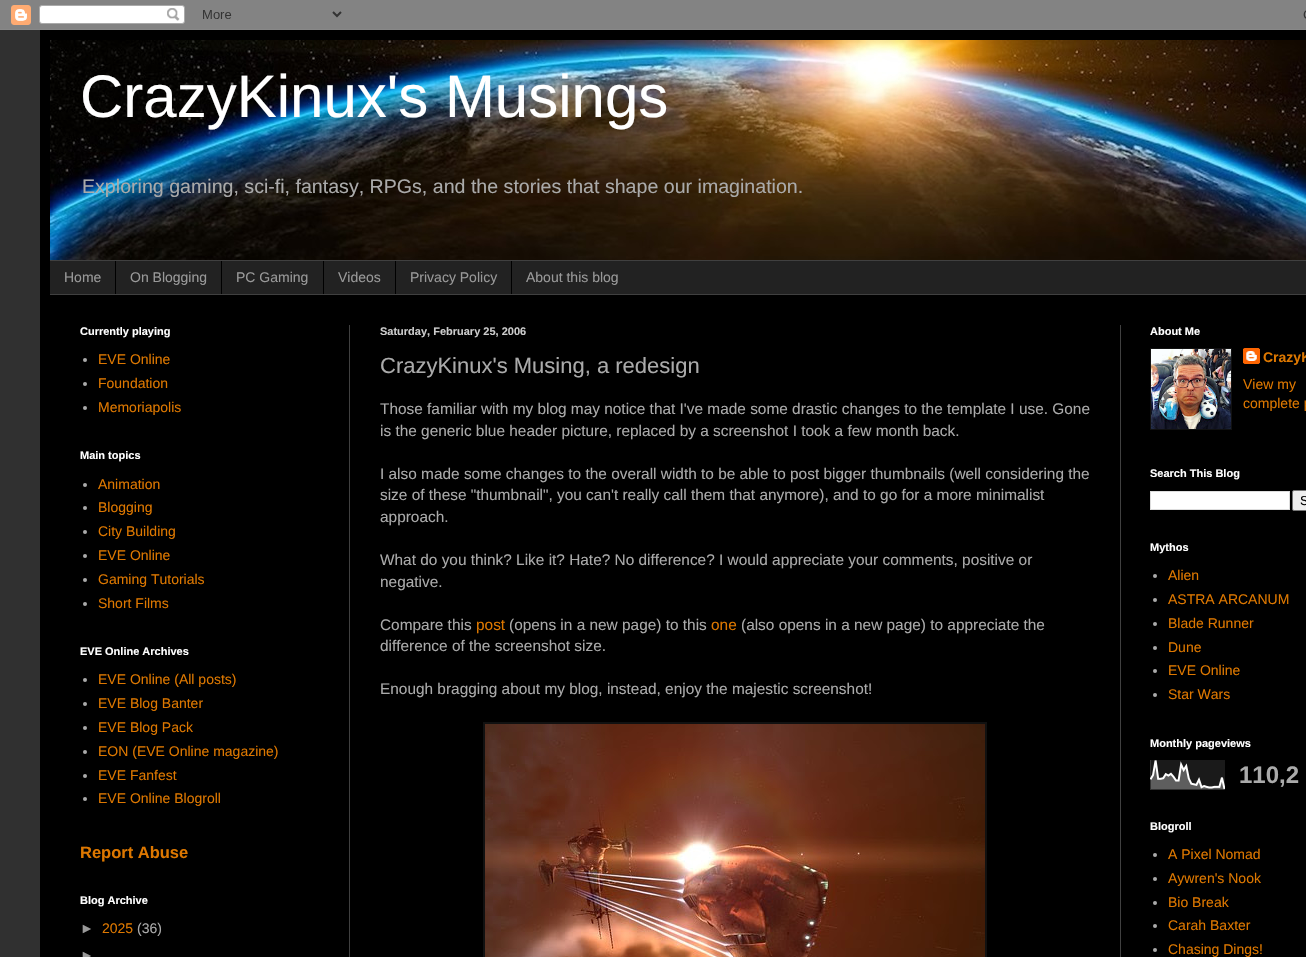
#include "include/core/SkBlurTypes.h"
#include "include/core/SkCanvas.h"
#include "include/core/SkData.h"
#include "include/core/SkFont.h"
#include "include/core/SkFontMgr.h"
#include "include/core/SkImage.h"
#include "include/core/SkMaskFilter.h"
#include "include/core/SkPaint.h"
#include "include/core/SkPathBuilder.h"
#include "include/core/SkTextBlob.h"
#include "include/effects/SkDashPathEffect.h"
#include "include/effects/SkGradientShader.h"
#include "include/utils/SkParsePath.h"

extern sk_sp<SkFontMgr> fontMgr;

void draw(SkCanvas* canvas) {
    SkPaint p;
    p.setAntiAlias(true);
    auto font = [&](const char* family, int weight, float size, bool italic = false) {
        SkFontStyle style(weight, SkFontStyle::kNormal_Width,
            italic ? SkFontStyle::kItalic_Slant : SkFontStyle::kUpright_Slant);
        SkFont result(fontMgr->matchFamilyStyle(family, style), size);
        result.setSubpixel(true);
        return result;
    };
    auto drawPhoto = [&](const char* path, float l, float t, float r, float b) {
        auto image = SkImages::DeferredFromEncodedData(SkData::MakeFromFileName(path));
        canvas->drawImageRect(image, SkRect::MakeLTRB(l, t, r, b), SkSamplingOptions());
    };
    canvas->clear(0xFF303030);
    drawPhoto("media/1.png", 0, 0, 1306, 30);
    p.setColor(0xFF000000);
    canvas->drawRect(SkRect::MakeLTRB(40, 30, 1306, 957), p);
    drawPhoto("media/2.png", 50, 40, 1306, 260);
    auto font1 = font("Liberation Sans", 400, 60);
    p.setColor(0xFFFFFFFF);
    canvas->drawString("CrazyKinux's Musings", 80, 117, font1, p);
    auto font2 = font("Liberation Sans", 400, 19.6f);
    p.setColor(0xFFAAAAAA);
    canvas->drawString("Exploring gaming, sci-fi, fantasy, RPGs, and the stories that shape our imagination.", 82, 193, font2, p);
    {
        const struct { float l, t, r, b; SkColor color; } items[] = {
            {50, 261, 1306, 294, 0xFF222222},
            {50, 260, 1306, 261, 0xFF404040},
            {50, 294, 1306, 295, 0xFF404040},
        };
        for (auto [l, t, r, b, color] : items) {
            p.setColor(color);
            canvas->drawRect(SkRect::MakeLTRB(l, t, r, b), p);
        }
    }
    auto font3 = font("Liberation Sans", 400, 14);
    p.setColor(0xFF999999);
    canvas->drawString("Home", 64, 282, font3, p);
    p.setColor(0xFF000000);
    canvas->drawRect(SkRect::MakeLTRB(115, 261, 116, 294), p);
    p.setColor(0xFF999999);
    canvas->drawString("On Blogging", 130, 282, font3, p);
    p.setColor(0xFF000000);
    canvas->drawRect(SkRect::MakeLTRB(221, 261, 222, 294), p);
    p.setColor(0xFF999999);
    canvas->drawString("PC Gaming", 236, 282, font3, p);
    p.setColor(0xFF000000);
    canvas->drawRect(SkRect::MakeLTRB(323, 261, 324, 294), p);
    p.setColor(0xFF999999);
    canvas->drawString("Videos", 338, 282, font3, p);
    p.setColor(0xFF000000);
    canvas->drawRect(SkRect::MakeLTRB(395, 261, 396, 294), p);
    p.setColor(0xFF999999);
    canvas->drawString("Privacy Policy", 410, 282, font3, p);
    p.setColor(0xFF000000);
    canvas->drawRect(SkRect::MakeLTRB(511, 261, 512, 294), p);
    p.setColor(0xFF999999);
    canvas->drawString("About this blog", 526, 282, font3, p);
    p.setColor(0xFF404040);
    canvas->drawRect(SkRect::MakeLTRB(349, 325, 350, 957), p);
    canvas->drawRect(SkRect::MakeLTRB(1120, 325, 1121, 957), p);
    auto font4 = font("Liberation Sans", 700, 11);
    p.setColor(0xFFFFFFFF);
    canvas->drawString("Currently playing", 80, 335, font4, p);
    p.setColor(0xFFAAAAAA);
    canvas->drawCircle(85, 360, 2, p);
    p.setColor(0xFFDD7700);
    canvas->drawString("EVE Online", 98, 364, font3, p);
    p.setColor(0xFFAAAAAA);
    canvas->drawCircle(85, 384, 2, p);
    p.setColor(0xFFDD7700);
    canvas->drawString("Foundation", 98, 388, font3, p);
    p.setColor(0xFFAAAAAA);
    canvas->drawCircle(85, 408, 2, p);
    p.setColor(0xFFDD7700);
    canvas->drawString("Memoriapolis", 98, 412, font3, p);
    p.setColor(0xFFFFFFFF);
    canvas->drawString("Main topics", 80, 459, font4, p);
    p.setColor(0xFFAAAAAA);
    canvas->drawCircle(85, 485, 2, p);
    p.setColor(0xFFDD7700);
    canvas->drawString("Animation", 98, 489, font3, p);
    p.setColor(0xFFAAAAAA);
    canvas->drawCircle(85, 508, 2, p);
    p.setColor(0xFFDD7700);
    canvas->drawString("Blogging", 98, 512, font3, p);
    p.setColor(0xFFAAAAAA);
    canvas->drawCircle(85, 532, 2, p);
    p.setColor(0xFFDD7700);
    canvas->drawString("City Building", 98, 536, font3, p);
    p.setColor(0xFFAAAAAA);
    canvas->drawCircle(85, 556, 2, p);
    p.setColor(0xFFDD7700);
    canvas->drawString("EVE Online", 98, 560, font3, p);
    p.setColor(0xFFAAAAAA);
    canvas->drawCircle(85, 580, 2, p);
    p.setColor(0xFFDD7700);
    canvas->drawString("Gaming Tutorials", 98, 584, font3, p);
    p.setColor(0xFFAAAAAA);
    canvas->drawCircle(85, 604, 2, p);
    p.setColor(0xFFDD7700);
    canvas->drawString("Short Films", 98, 608, font3, p);
    p.setColor(0xFFFFFFFF);
    canvas->drawString("EVE Online Archives", 80, 655, font4, p);
    p.setColor(0xFFAAAAAA);
    canvas->drawCircle(85, 680, 2, p);
    p.setColor(0xFFDD7700);
    canvas->drawString("EVE Online (All posts)", 98, 684, font3, p);
    p.setColor(0xFFAAAAAA);
    canvas->drawCircle(85, 704, 2, p);
    p.setColor(0xFFDD7700);
    canvas->drawString("EVE Blog Banter", 98, 708, font3, p);
    p.setColor(0xFFAAAAAA);
    canvas->drawCircle(85, 728, 2, p);
    p.setColor(0xFFDD7700);
    canvas->drawString("EVE Blog Pack", 98, 732, font3, p);
    p.setColor(0xFFAAAAAA);
    canvas->drawCircle(85, 752, 2, p);
    p.setColor(0xFFDD7700);
    canvas->drawString("EON (EVE Online magazine)", 98, 756, font3, p);
    p.setColor(0xFFAAAAAA);
    canvas->drawCircle(85, 776, 2, p);
    p.setColor(0xFFDD7700);
    canvas->drawString("EVE Fanfest", 98, 780, font3, p);
    p.setColor(0xFFAAAAAA);
    canvas->drawCircle(85, 799, 2, p);
    p.setColor(0xFFDD7700);
    canvas->drawString("EVE Online Blogroll", 98, 803, font3, p);
    auto font5 = font("Liberation Sans", 700, 16.5f);
    canvas->drawString("Report Abuse", 80, 858, font5, p);
    p.setColor(0xFFFFFFFF);
    canvas->drawString("Blog Archive", 80, 904, font4, p);
    p.setColor(0xFF999999);
    canvas->drawString("►", 80, 933, font3, p);
    p.setColor(0xFFDD7700);
    canvas->drawString("2025", 102, 933, font3, p);
    p.setColor(0xFFAAAAAA);
    canvas->drawString("(36)", 137, 933, font3, p);
    p.setColor(0xFF999999);
    canvas->drawString("►", 80, 960, font3, p);
    p.setColor(0xFFCCCCCC);
    canvas->drawString("Saturday, February 25, 2006", 380, 335, font4, p);
    auto font6 = font("Liberation Sans", 400, 22);
    p.setColor(0xFFAAAAAA);
    canvas->drawString("CrazyKinux's Musing, a redesign", 380, 373, font6, p);
    auto font7 = font("Liberation Sans", 400, 15.4f);
    {
        const struct { const char* s; float x, y; } items[] = {
            {"Those familiar with my blog may notice that I've made some drastic changes to the template I use. Gone", 380, 414},
            {"is the generic blue header picture, replaced by a screenshot I took a few month back.", 380, 436},
            {"I also made some changes to the overall width to be able to post bigger thumbnails (well considering the", 380, 479},
            {"size of these \"thumbnail\", you can't really call them that anymore), and to go for a more minimalist", 380, 500},
            {"approach.", 380, 522},
            {"What do you think? Like it? Hate? No difference? I would appreciate your comments, positive or", 380, 565},
            {"negative.", 380, 587},
            {"Compare this", 380, 630},
        };
        for (auto [s, x, y] : items) {
            canvas->drawString(s, x, y, font7, p);
        }
    }
    p.setColor(0xFFDD7700);
    canvas->drawString("post", 476, 630, font7, p);
    p.setColor(0xFFAAAAAA);
    canvas->drawString("(opens in a new page) to this", 509, 630, font7, p);
    p.setColor(0xFFDD7700);
    canvas->drawString("one", 711, 630, font7, p);
    p.setColor(0xFFAAAAAA);
    {
        const struct { const char* s; float x, y; } items[] = {
            {"(also opens in a new page) to appreciate the", 741, 630},
            {"difference of the screenshot size.", 380, 651},
            {"Enough bragging about my blog, instead, enjoy the majestic screenshot!", 380, 694},
        };
        for (auto [s, x, y] : items) {
            canvas->drawString(s, x, y, font7, p);
        }
    }
    p.setColor(0xFF111111);
    canvas->drawRect(SkRect::MakeLTRB(483, 722, 987, 957), p);
    drawPhoto("media/3.png", 485, 724, 985, 957);
    p.setColor(0xFFFFFFFF);
    canvas->drawString("About Me", 1150, 335, font4, p);
    p.setColor(0xFF111111);
    canvas->drawRect(SkRect::MakeLTRB(1150, 348, 1232, 430), p);
    drawPhoto("media/4.png", 1151, 349, 1231, 429);
    drawPhoto("media/5.png", 1243, 348, 1260, 364);
    auto font8 = font("Liberation Sans", 700, 14);
    p.setColor(0xFFDD7700);
    canvas->drawString("CrazyK", 1263, 362, font8, p);
    canvas->drawString("View my", 1243, 389, font3, p);
    canvas->drawString("complete p", 1243, 408, font3, p);
    p.setColor(0xFFFFFFFF);
    canvas->drawString("Search This Blog", 1150, 477, font4, p);
    canvas->drawRect(SkRect::MakeLTRB(1150.5f, 491.5f, 1289.5f, 509.5f), p);
    p.setStyle(SkPaint::kStroke_Style);
    p.setStrokeWidth(1);
    p.setColor(0xFFDDDDDD);
    canvas->drawRect(SkRect::MakeLTRB(1150.5f, 491.5f, 1289.5f, 509.5f), p);
    p.setStyle(SkPaint::kFill_Style);
    p.setColor(0xFFEFEFEF);
    canvas->drawRoundRect(SkRect::MakeLTRB(1292.5f, 490.5f, 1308.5f, 510.5f), 1.5f, 1.5f, p);
    p.setStyle(SkPaint::kStroke_Style);
    p.setColor(0xFF767676);
    canvas->drawRoundRect(SkRect::MakeLTRB(1292.5f, 490.5f, 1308.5f, 510.5f), 1.5f, 1.5f, p);
    auto font9 = font("Liberation Sans", 400, 13);
    p.setStyle(SkPaint::kFill_Style);
    p.setColor(0xFF000000);
    canvas->drawString("S", 1300, 505, font9, p);
    p.setColor(0xFFFFFFFF);
    canvas->drawString("Mythos", 1150, 551, font4, p);
    p.setColor(0xFFAAAAAA);
    canvas->drawCircle(1155, 576, 2, p);
    p.setColor(0xFFDD7700);
    canvas->drawString("Alien", 1168, 580, font3, p);
    p.setColor(0xFFAAAAAA);
    canvas->drawCircle(1155, 600, 2, p);
    p.setColor(0xFFDD7700);
    canvas->drawString("ASTRA ARCANUM", 1168, 604, font3, p);
    p.setColor(0xFFAAAAAA);
    canvas->drawCircle(1155, 624, 2, p);
    p.setColor(0xFFDD7700);
    canvas->drawString("Blade Runner", 1168, 628, font3, p);
    p.setColor(0xFFAAAAAA);
    canvas->drawCircle(1155, 648, 2, p);
    p.setColor(0xFFDD7700);
    canvas->drawString("Dune", 1168, 652, font3, p);
    p.setColor(0xFFAAAAAA);
    canvas->drawCircle(1155, 671, 2, p);
    p.setColor(0xFFDD7700);
    canvas->drawString("EVE Online", 1168, 675, font3, p);
    p.setColor(0xFFAAAAAA);
    canvas->drawCircle(1155, 695, 2, p);
    p.setColor(0xFFDD7700);
    canvas->drawString("Star Wars", 1168, 699, font3, p);
    p.setColor(0xFFFFFFFF);
    canvas->drawString("Monthly pageviews", 1150, 747, font4, p);
    drawPhoto("media/6.png", 1150, 760, 1225, 790);
    auto font10 = font("Liberation Sans", 700, 24);
    p.setColor(0xFFAAAAAA);
    canvas->drawString("110,2", 1239, 783, font10, p);
    p.setColor(0xFFFFFFFF);
    canvas->drawString("Blogroll", 1150, 830, font4, p);
    p.setColor(0xFFAAAAAA);
    canvas->drawCircle(1155, 855, 2, p);
    p.setColor(0xFFDD7700);
    canvas->drawString("A Pixel Nomad", 1168, 859, font3, p);
    p.setColor(0xFFAAAAAA);
    canvas->drawCircle(1155, 879, 2, p);
    p.setColor(0xFFDD7700);
    canvas->drawString("Aywren's Nook", 1168, 883, font3, p);
    p.setColor(0xFFAAAAAA);
    canvas->drawCircle(1155, 903, 2, p);
    p.setColor(0xFFDD7700);
    canvas->drawString("Bio Break", 1168, 907, font3, p);
    p.setColor(0xFFAAAAAA);
    canvas->drawCircle(1155, 926, 2, p);
    p.setColor(0xFFDD7700);
    canvas->drawString("Carah Baxter", 1168, 930, font3, p);
    p.setColor(0xFFAAAAAA);
    canvas->drawCircle(1155, 950, 2, p);
    p.setColor(0xFFDD7700);
    canvas->drawString("Chasing Dings!", 1168, 954, font3, p);
}
